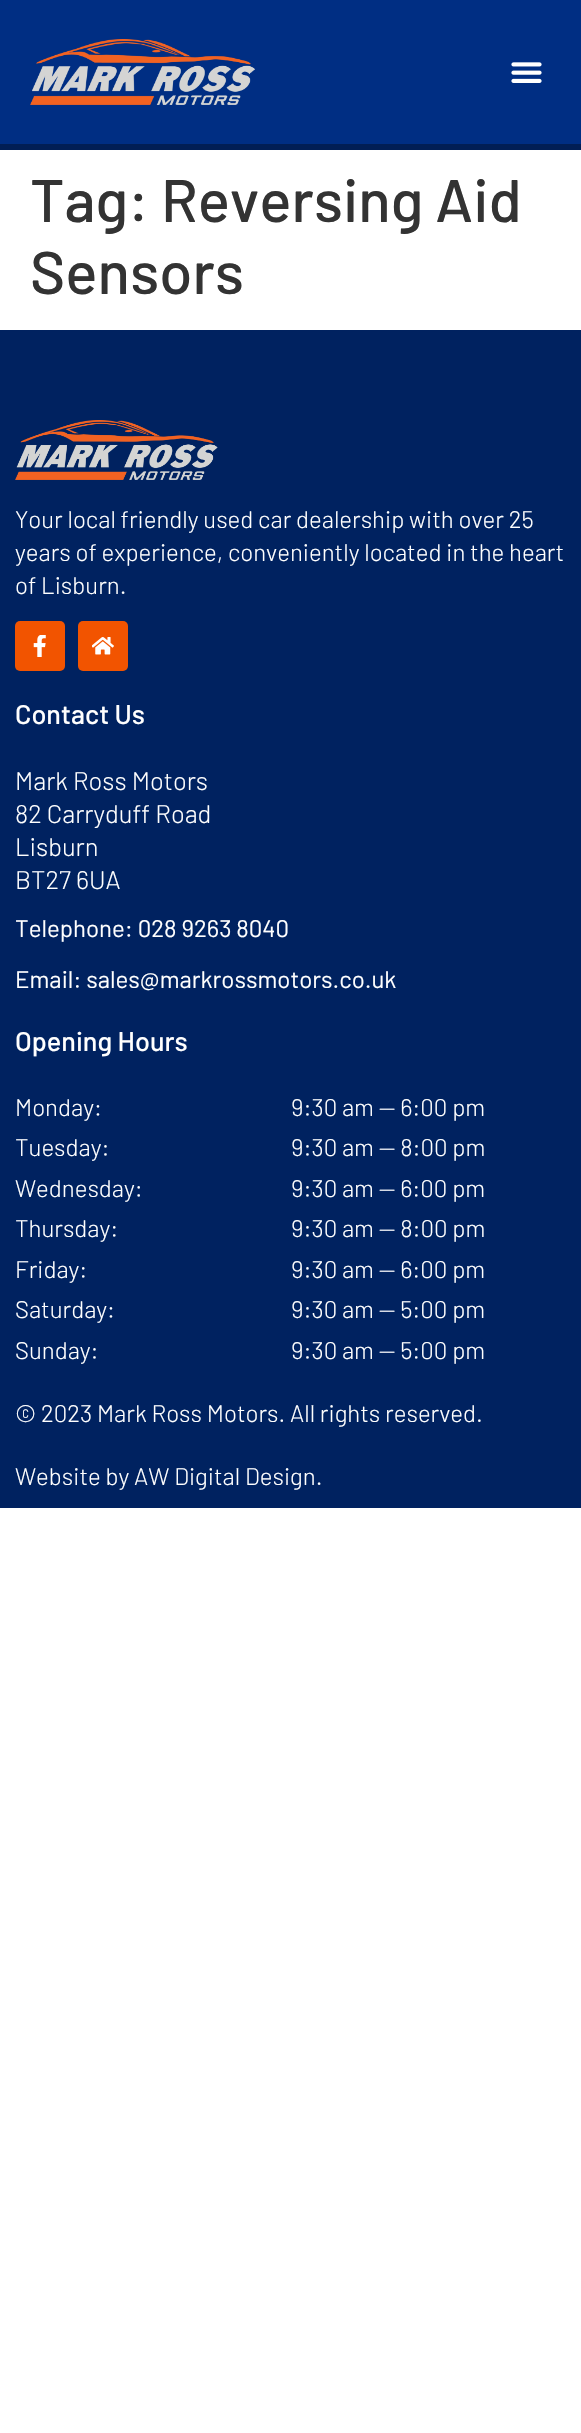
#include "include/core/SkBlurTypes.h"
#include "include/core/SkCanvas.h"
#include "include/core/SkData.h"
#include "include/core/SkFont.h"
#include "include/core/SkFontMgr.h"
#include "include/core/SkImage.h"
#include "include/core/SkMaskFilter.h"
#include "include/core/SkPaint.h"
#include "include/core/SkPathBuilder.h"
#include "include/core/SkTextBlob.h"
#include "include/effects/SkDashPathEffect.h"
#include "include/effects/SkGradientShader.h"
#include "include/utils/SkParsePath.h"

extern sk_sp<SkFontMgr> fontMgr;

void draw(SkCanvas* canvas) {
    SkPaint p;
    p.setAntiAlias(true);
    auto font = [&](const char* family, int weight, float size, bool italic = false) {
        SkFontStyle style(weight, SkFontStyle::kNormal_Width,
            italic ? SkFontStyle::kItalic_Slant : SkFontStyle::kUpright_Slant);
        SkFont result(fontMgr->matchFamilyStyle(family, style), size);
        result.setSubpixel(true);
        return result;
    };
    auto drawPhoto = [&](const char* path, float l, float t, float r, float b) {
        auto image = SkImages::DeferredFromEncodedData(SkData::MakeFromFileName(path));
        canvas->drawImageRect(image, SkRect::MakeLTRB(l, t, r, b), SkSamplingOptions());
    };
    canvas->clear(0xFFFFFFFF);
    p.setColor(0xFF002E83);
    canvas->drawRect(SkRect::MakeLTRB(0, 0, 581, 144), p);
    p.setColor(0xFF011E55);
    canvas->drawRect(SkRect::MakeLTRB(0, 144, 581, 150), p);
    drawPhoto("media/1.png", 30, 39, 255, 105);
    drawPhoto("media/2.png", 511, 62, 542, 83);
    auto font1 = font("Barlow", 500, 60);
    p.setColor(0xFF333333);
    canvas->drawString("Tag: Reversing Aid", 30, 222, font1, p);
    canvas->drawString("Sensors", 30, 294, font1, p);
    p.setColor(0xFF002260);
    canvas->drawRect(SkRect::MakeLTRB(0, 330, 581, 1508), p);
    drawPhoto("media/3.png", 15, 420, 218, 480);
    auto font2 = font("Barlow", 300, 24);
    p.setColor(0xFFFFFFFF);
    {
        const struct { const char* s; float x, y; } items[] = {
            {"Your local friendly used car dealership with over 25", 15, 528},
            {"years of experience, conveniently located in the heart", 15, 561},
            {"of Lisburn.", 15, 594},
        };
        for (auto [s, x, y] : items) {
            canvas->drawString(s, x, y, font2, p);
        }
    }
    p.setColor(0xFFF25400);
    canvas->drawRoundRect(SkRect::MakeLTRB(15, 621, 65, 671), 5, 5, p);
    drawPhoto("media/4.png", 33, 635, 46, 657);
    canvas->drawRoundRect(SkRect::MakeLTRB(78, 621, 128, 671), 5, 5, p);
    drawPhoto("media/5.png", 92, 637, 114, 655);
    auto font3 = font("Barlow", 500, 27);
    p.setColor(0xFFFFFFFF);
    canvas->drawString("Contact Us", 15, 724, font3, p);
    auto font4 = font("Barlow", 300, 25.5f);
    {
        const struct { const char* s; float x, y; } items[] = {
            {"Mark Ross Motors", 15, 790},
            {"82 Carryduff Road", 15, 823},
            {"Lisburn", 15, 856},
            {"BT27 6UA", 15, 889},
        };
        for (auto [s, x, y] : items) {
            canvas->drawString(s, x, y, font4, p);
        }
    }
    auto font5 = font("Barlow", 400, 24);
    canvas->drawString("Telephone: 028 9263 8040", 15, 937, font5, p);
    canvas->drawString("Email: sales@markrossmotors.co.uk", 15, 988, font5, p);
    canvas->drawString("Opening Hours", 15, 1051, font3, p);
    {
        const struct { const char* s; float x, y; } items[] = {
            {"Monday:", 15, 1116},
            {"Tuesday:", 15, 1156},
            {"Wednesday:", 15, 1197},
            {"Thursday:", 15, 1237},
            {"Friday:", 15, 1278},
            {"Saturday:", 15, 1318},
            {"Sunday:", 15, 1359},
            {"9:30 am — 6:00 pm", 291, 1116},
            {"9:30 am — 8:00 pm", 291, 1156},
            {"9:30 am — 6:00 pm", 291, 1197},
            {"9:30 am — 8:00 pm", 291, 1237},
            {"9:30 am — 6:00 pm", 291, 1278},
            {"9:30 am — 5:00 pm", 291, 1318},
            {"9:30 am — 5:00 pm", 291, 1359},
            {"© 2023 Mark Ross Motors. All rights reserved.", 15, 1422},
            {"Website by AW Digital Design.", 15, 1485},
        };
        for (auto [s, x, y] : items) {
            canvas->drawString(s, x, y, font2, p);
        }
    }
}
